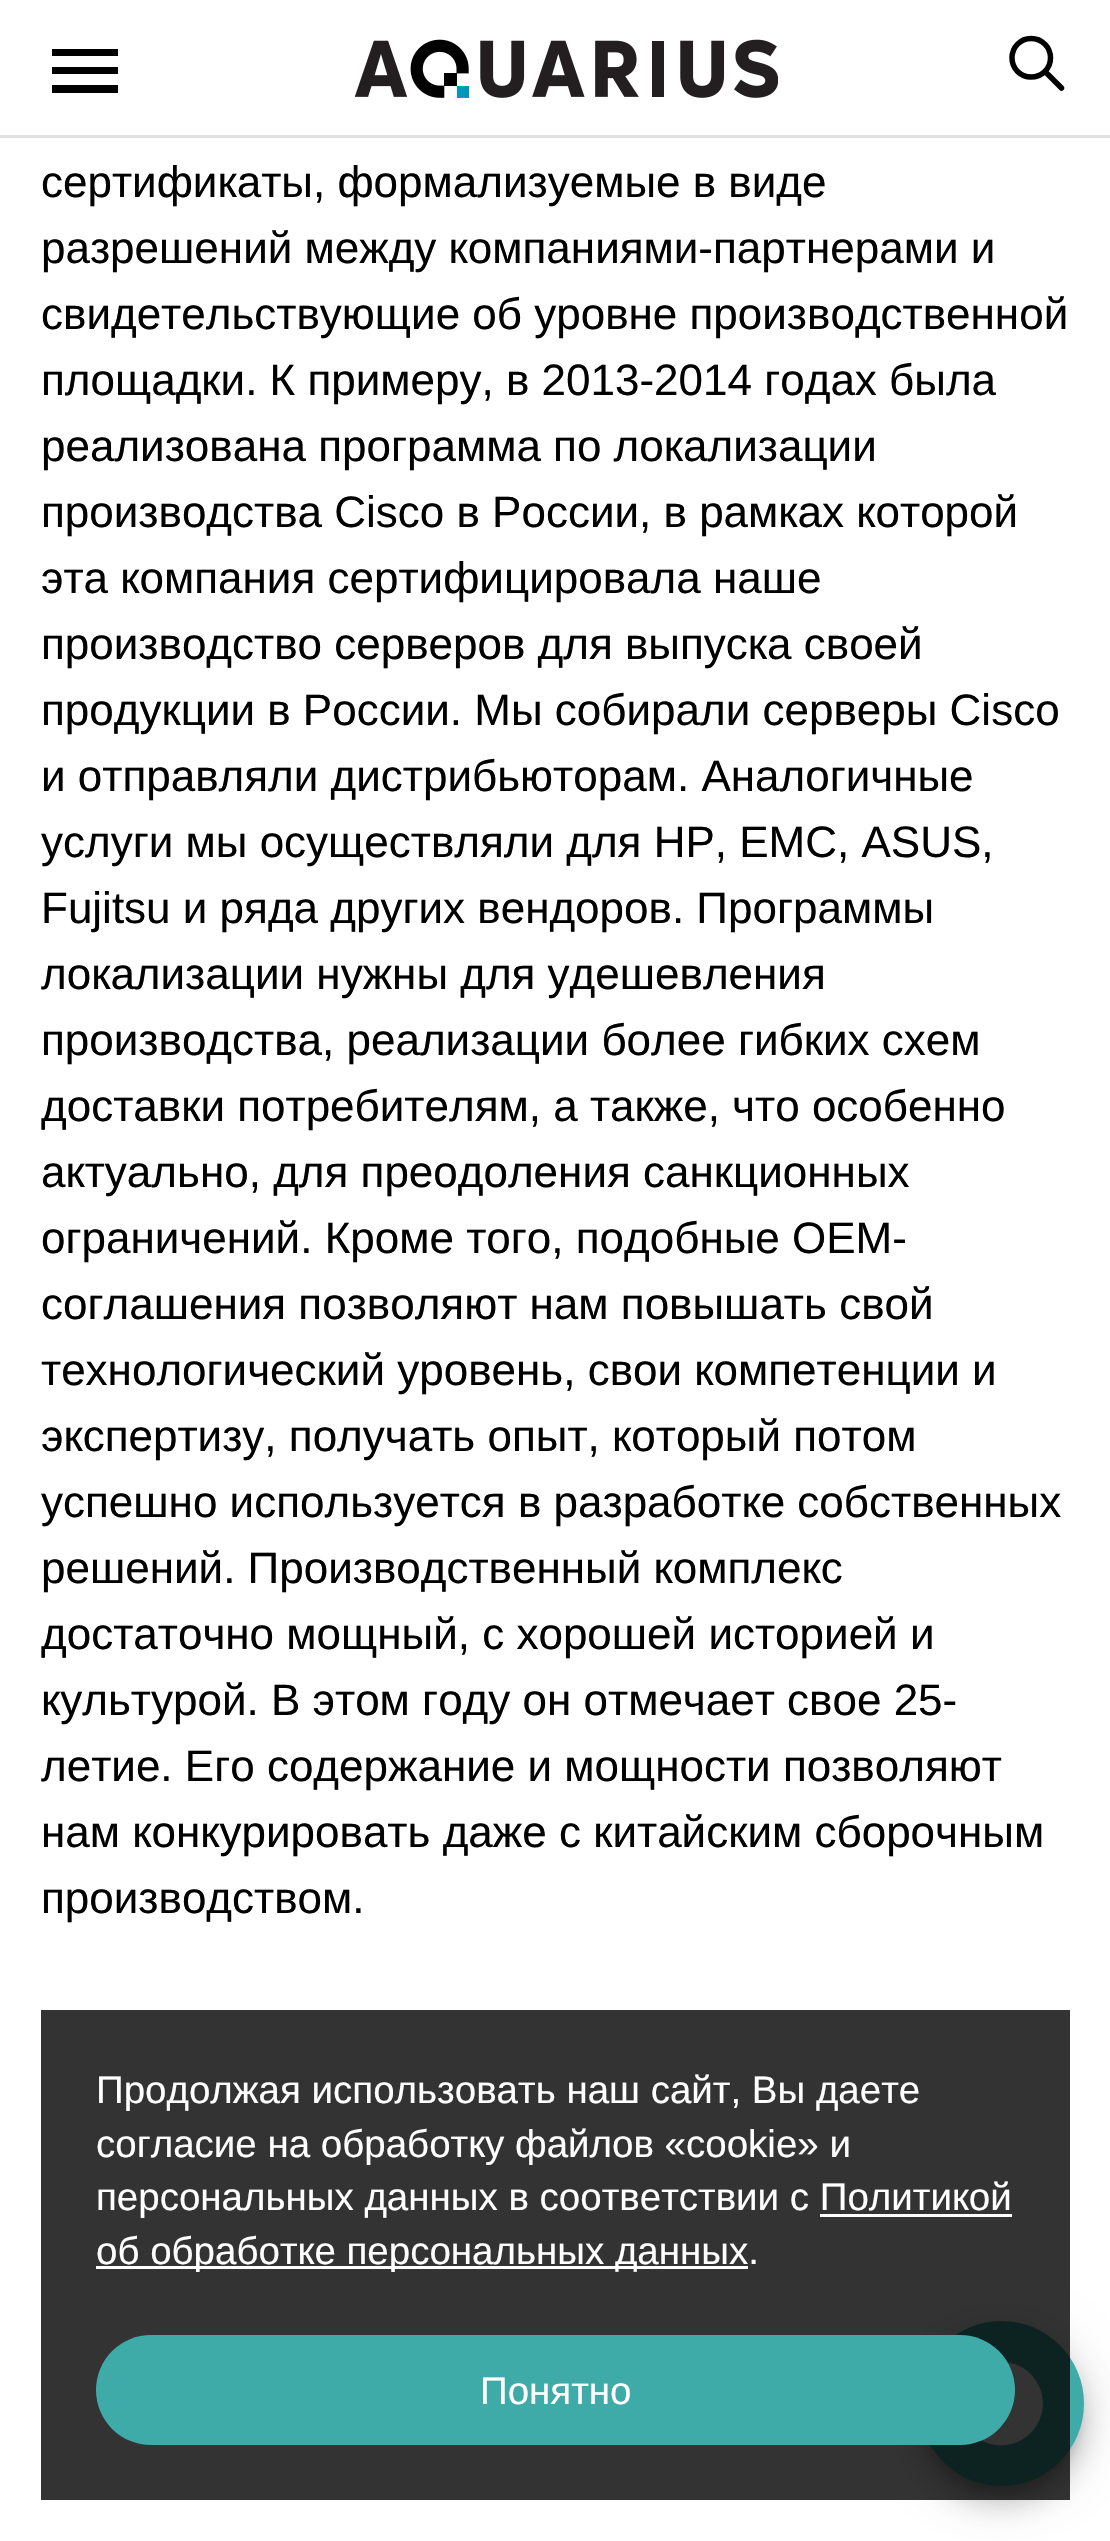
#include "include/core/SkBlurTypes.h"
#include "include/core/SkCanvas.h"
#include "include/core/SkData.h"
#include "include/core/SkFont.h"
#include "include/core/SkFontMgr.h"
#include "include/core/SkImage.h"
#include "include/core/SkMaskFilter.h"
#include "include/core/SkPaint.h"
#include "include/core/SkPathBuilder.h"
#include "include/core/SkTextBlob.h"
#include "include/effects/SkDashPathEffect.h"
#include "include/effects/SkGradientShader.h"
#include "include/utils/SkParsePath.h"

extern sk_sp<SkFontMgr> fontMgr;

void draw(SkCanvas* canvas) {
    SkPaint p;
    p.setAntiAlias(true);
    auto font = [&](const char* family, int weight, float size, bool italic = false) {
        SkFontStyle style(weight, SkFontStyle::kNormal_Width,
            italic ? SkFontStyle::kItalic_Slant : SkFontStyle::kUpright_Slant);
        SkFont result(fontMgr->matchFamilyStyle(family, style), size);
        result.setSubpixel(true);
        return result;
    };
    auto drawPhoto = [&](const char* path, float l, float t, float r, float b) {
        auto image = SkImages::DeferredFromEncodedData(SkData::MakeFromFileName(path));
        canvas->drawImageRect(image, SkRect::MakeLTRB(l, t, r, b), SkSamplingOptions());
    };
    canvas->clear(0xFFFFFFFF);
    p.setColor(0xFFE0E0E0);
    canvas->drawRect(SkRect::MakeLTRB(0, 135, 1110, 138), p);
    p.setColor(0xFF000000);
    canvas->drawPath(SkPathBuilder().moveTo(118, 93).lineTo(52, 93).lineTo(52, 85).lineTo(118, 85).close().moveTo(118, 74).lineTo(52, 74).lineTo(52, 67).lineTo(118, 67).close().moveTo(118, 56).lineTo(52, 56).lineTo(52, 49).lineTo(118, 49).close().detach(), p);
    drawPhoto("media/1.png", 355, 39, 778, 98);
    p.setStyle(SkPaint::kStroke_Style);
    p.setStrokeWidth(5.5f);
    p.setStrokeCap(SkPaint::kRound_Cap);
    p.setStrokeJoin(SkPaint::kRound_Join);
    canvas->drawPath(SkPathBuilder().moveTo(1031, 77).cubicTo(1042, 77, 1050.5f, 68.5f, 1050.5f, 58).cubicTo(1050.5f, 47, 1042, 38.5f, 1031, 38.5f).cubicTo(1020.5f, 38.5f, 1012, 47, 1012, 58).cubicTo(1012, 68.5f, 1020.5f, 77, 1031, 77).close().moveTo(1045, 71.5f).lineTo(1061.5f, 88).detach(), p);
    auto font1 = font("Liberation Sans", 400, 44);
    p.setStyle(SkPaint::kFill_Style);
    {
        const struct { const char* s; float x, y; } items[] = {
            {"сертификаты, формализуемые в виде", 41, 197},
            {"разрешений между компаниями-партнерами и", 41, 263},
            {"свидетельствующие об уровне производственной", 41, 329},
            {"площадки. К примеру, в 2013-2014 годах была", 41, 395},
            {"реализована программа по локализации", 41, 461},
            {"производства Cisco в России, в рамках которой", 41, 527},
            {"эта компания сертифицировала наше", 41, 593},
            {"производство серверов для выпуска своей", 41, 659},
            {"продукции в России. Мы собирали серверы Cisco", 41, 725},
            {"и отправляли дистрибьюторам. Аналогичные", 41, 791},
            {"услуги мы осуществляли для HP, ЕМС, ASUS,", 41, 857},
            {"Fujitsu и ряда других вендоров. Программы", 41, 923},
            {"локализации нужны для удешевления", 41, 989},
            {"производства, реализации более гибких схем", 41, 1055},
            {"доставки потребителям, а также, что особенно", 41, 1121},
            {"актуально, для преодоления санкционных", 41, 1187},
            {"ограничений. Кроме того, подобные ОЕМ-", 41, 1253},
            {"соглашения позволяют нам повышать свой", 41, 1319},
            {"технологический уровень, свои компетенции и", 41, 1385},
            {"экспертизу, получать опыт, который потом", 41, 1451},
            {"успешно используется в разработке собственных", 41, 1517},
            {"решений. Производственный комплекс", 41, 1583},
            {"достаточно мощный, с хорошей историей и", 41, 1649},
            {"культурой. В этом году он отмечает свое 25-", 41, 1715},
            {"летие. Его содержание и мощности позволяют", 41, 1781},
            {"нам конкурировать даже с китайским сборочным", 41, 1847},
            {"производством.", 41, 1913},
        };
        for (auto [s, x, y] : items) {
            canvas->drawString(s, x, y, font1, p);
        }
    }
    p.setColor(0x1F000000);
    p.setMaskFilter(SkMaskFilter::MakeBlur(kNormal_SkBlurStyle, 22));
    canvas->drawRoundRect(SkRect::MakeLTRB(916, 2324, 1086, 2494), 85, 85, p);
    p.setMaskFilter(nullptr);
    p.setColor(0x24000000);
    p.setMaskFilter(SkMaskFilter::MakeBlur(kNormal_SkBlurStyle, 14));
    canvas->drawRoundRect(SkRect::MakeLTRB(916, 2338, 1086, 2508), 85, 85, p);
    p.setMaskFilter(nullptr);
    p.setColor(0x33000000);
    p.setMaskFilter(SkMaskFilter::MakeBlur(kNormal_SkBlurStyle, 7));
    canvas->drawRoundRect(SkRect::MakeLTRB(924, 2338, 1078, 2492), 77, 77, p);
    p.setMaskFilter(nullptr);
    p.setColor(0xFF3FABA9);
    canvas->drawCircle(1001.5f, 2403.5f, 82.5f, p);
    drawPhoto("media/2.png", 960, 2362, 1043, 2446);
    p.setColor(0xCC000000);
    canvas->drawRect(SkRect::MakeLTRB(41, 2010, 1070, 2500), p);
    auto font2 = font("Liberation Sans", 400, 38.5f);
    p.setColor(0xFFFFFFFF);
    {
        const struct { const char* s; float x, y; } items[] = {
            {"Продолжая использовать наш сайт, Вы даете", 96, 2103},
            {"согласие на обработку файлов «cookie» и", 96, 2157},
            {"персональных данных в соответствии с Политикой", 96, 2210},
        };
        for (auto [s, x, y] : items) {
            canvas->drawString(s, x, y, font2, p);
        }
    }
    canvas->drawRect(SkRect::MakeLTRB(96, 2266, 748, 2269), p);
    canvas->drawString("об обработке персональных данных.", 96, 2264, font2, p);
    canvas->drawRect(SkRect::MakeLTRB(820, 2214, 1012, 2217), p);
    p.setColor(0xFF3FABA9);
    canvas->drawRoundRect(SkRect::MakeLTRB(96, 2335, 1015, 2445), 55, 55, p);
    p.setColor(0xFFFFFFFF);
    canvas->drawString("Понятно", 480, 2404, font2, p);
}
